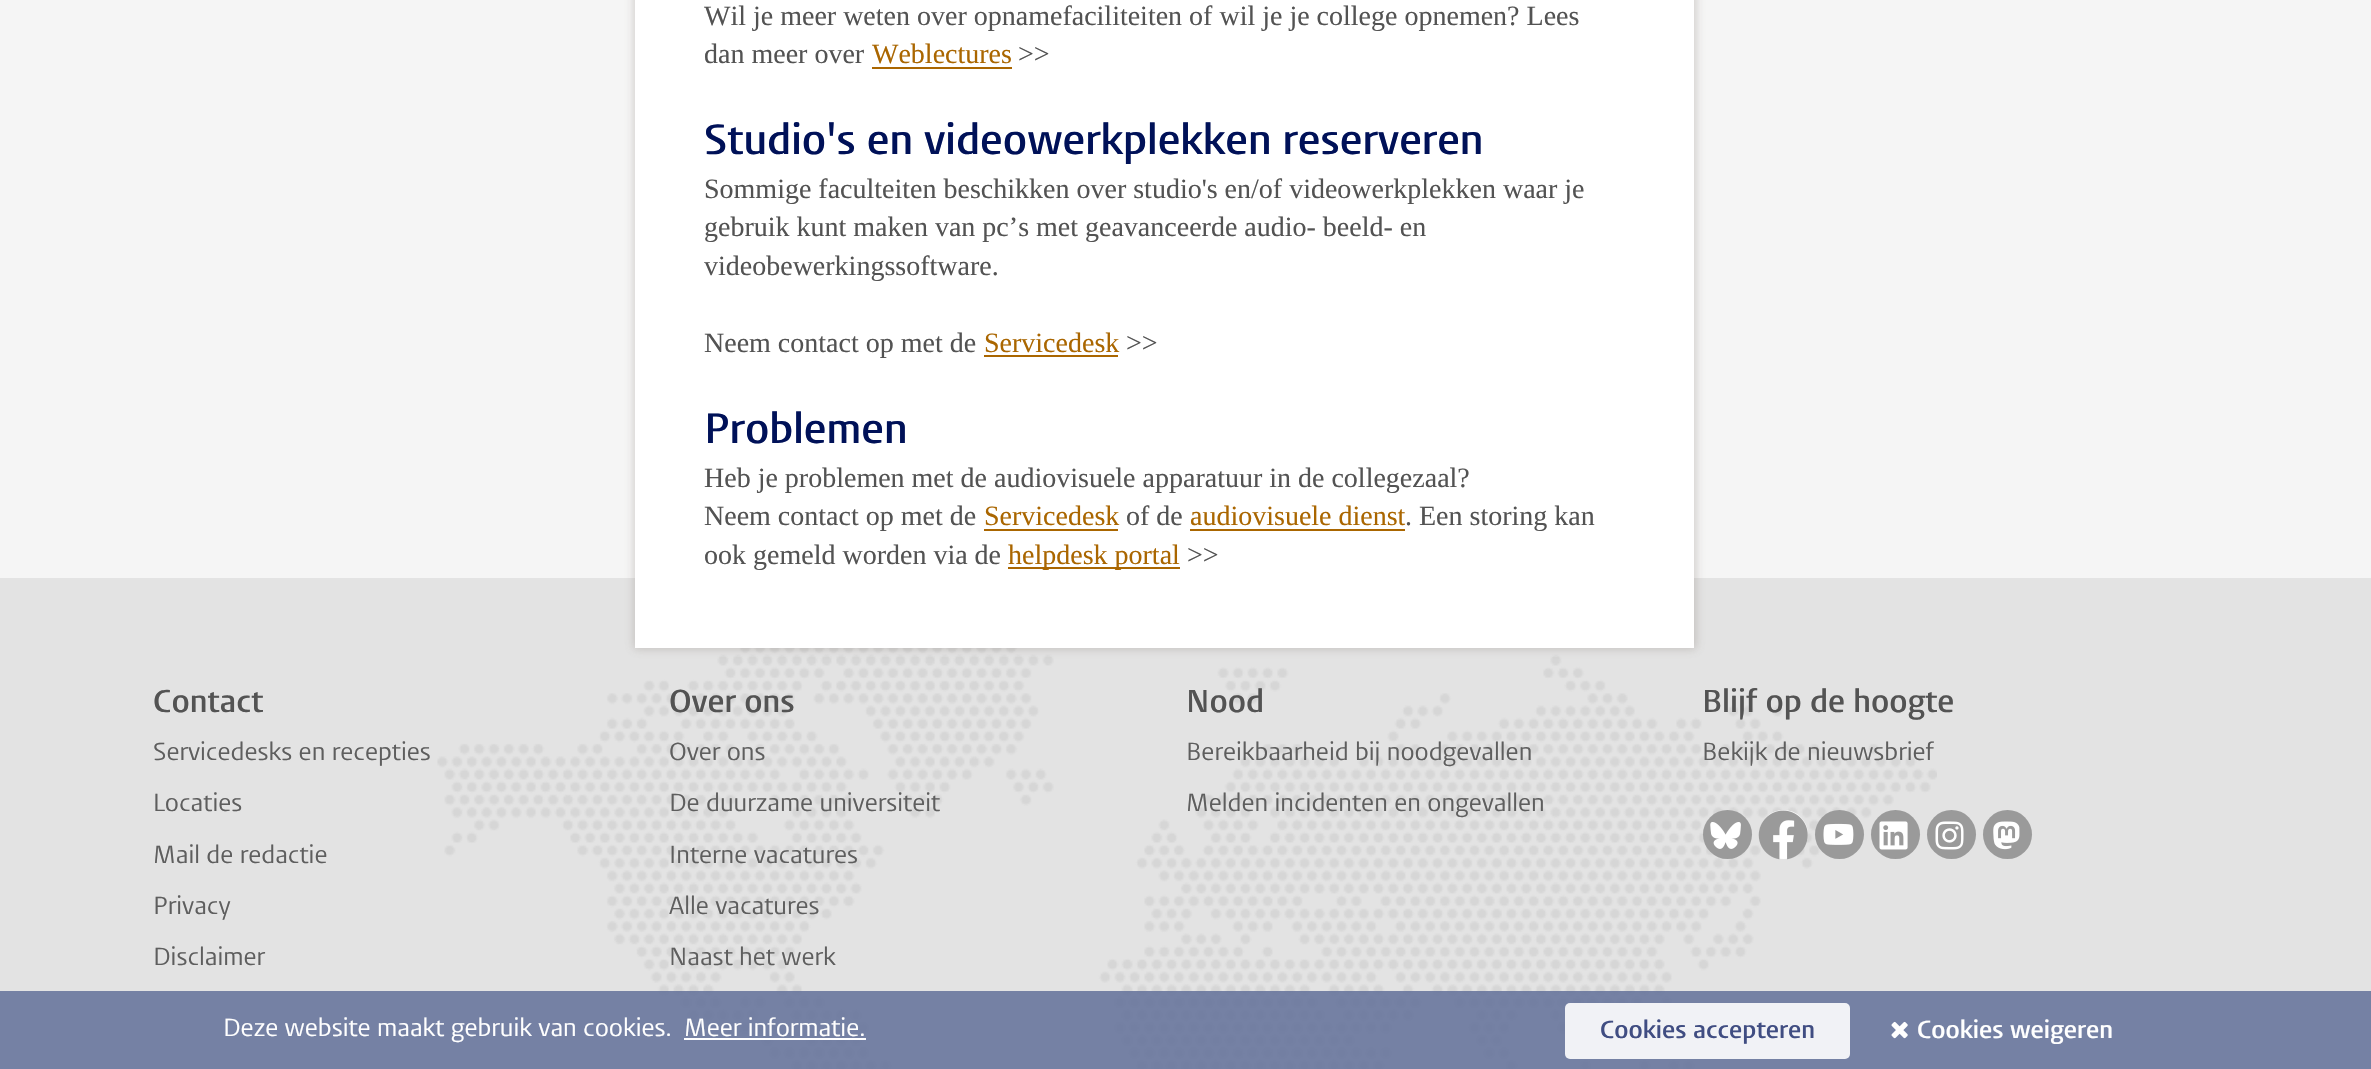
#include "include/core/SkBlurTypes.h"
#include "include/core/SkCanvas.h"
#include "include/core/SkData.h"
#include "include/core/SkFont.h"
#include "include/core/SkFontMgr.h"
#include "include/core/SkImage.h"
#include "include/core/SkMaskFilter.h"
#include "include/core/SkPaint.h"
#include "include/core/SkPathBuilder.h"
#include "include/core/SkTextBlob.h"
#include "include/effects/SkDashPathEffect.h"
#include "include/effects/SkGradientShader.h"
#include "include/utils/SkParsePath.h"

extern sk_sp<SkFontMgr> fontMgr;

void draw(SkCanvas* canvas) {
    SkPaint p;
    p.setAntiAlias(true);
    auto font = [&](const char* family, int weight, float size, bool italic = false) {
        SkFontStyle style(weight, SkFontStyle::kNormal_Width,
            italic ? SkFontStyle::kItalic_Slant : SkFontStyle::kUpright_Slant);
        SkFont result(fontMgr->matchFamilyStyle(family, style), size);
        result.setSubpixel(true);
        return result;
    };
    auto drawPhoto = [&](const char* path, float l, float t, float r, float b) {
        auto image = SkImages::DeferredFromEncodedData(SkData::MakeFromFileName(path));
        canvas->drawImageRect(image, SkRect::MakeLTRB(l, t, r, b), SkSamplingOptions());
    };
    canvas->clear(0xFFF5F5F5);
    p.setColor(0xFFE3E3E3);
    canvas->drawRect(SkRect::MakeLTRB(0, 578, 2371, 1069), p);
    drawPhoto("media/1.png", 437, 648, 1937, 1069);
    p.setColor(0x4D786E64);
    p.setMaskFilter(SkMaskFilter::MakeBlur(kNormal_SkBlurStyle, 4.5f));
    canvas->drawRect(SkRect::MakeLTRB(634, -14, 1696, 649), p);
    p.setMaskFilter(nullptr);
    p.setColor(0xFFFFFFFF);
    canvas->drawRect(SkRect::MakeLTRB(635, 0, 1694, 648), p);
    auto font1 = font("Liberation Serif", 400, 28);
    p.setColor(0xFF535353);
    canvas->drawString("Wil je meer weten over opnamefaciliteiten of wil je je college opnemen? Lees", 704, 25, font1, p);
    canvas->drawString("dan meer over", 704, 63, font1, p);
    p.setColor(0xFFAA6600);
    canvas->drawString("Weblectures", 872, 63, font1, p);
    canvas->drawRect(SkRect::MakeLTRB(872, 67, 1012, 69), p);
    p.setColor(0xFF535353);
    canvas->drawString(">>", 1018, 63, font1, p);
    auto font2 = font("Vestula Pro", 600, 42);
    p.setColor(0xFF001158);
    canvas->drawString("Studio's en videowerkplekken reserveren", 704, 154, font2, p);
    p.setColor(0xFF535353);
    {
        const struct { const char* s; float x, y; } items[] = {
            {"Sommige faculteiten beschikken over studio's en/of videowerkplekken waar je", 704, 198},
            {"gebruik kunt maken van pc’s met geavanceerde audio- beeld- en", 704, 236},
            {"videobewerkingssoftware.", 704, 275},
            {"Neem contact op met de", 704, 352},
        };
        for (auto [s, x, y] : items) {
            canvas->drawString(s, x, y, font1, p);
        }
    }
    p.setColor(0xFFAA6600);
    canvas->drawString("Servicedesk", 984, 352, font1, p);
    canvas->drawRect(SkRect::MakeLTRB(984, 355, 1118, 357), p);
    p.setColor(0xFF535353);
    canvas->drawString(">>", 1126, 352, font1, p);
    p.setColor(0xFF001158);
    canvas->drawString("Problemen", 704, 443, font2, p);
    p.setColor(0xFF535353);
    canvas->drawString("Heb je problemen met de audiovisuele apparatuur in de collegezaal?", 704, 487, font1, p);
    canvas->drawString("Neem contact op met de", 704, 525, font1, p);
    p.setColor(0xFFAA6600);
    canvas->drawString("Servicedesk", 984, 525, font1, p);
    canvas->drawRect(SkRect::MakeLTRB(984, 529, 1118, 531), p);
    p.setColor(0xFF535353);
    canvas->drawString("of de", 1126, 525, font1, p);
    p.setColor(0xFFAA6600);
    canvas->drawString("audiovisuele dienst", 1190, 525, font1, p);
    canvas->drawRect(SkRect::MakeLTRB(1190, 529, 1405, 531), p);
    p.setColor(0xFF535353);
    canvas->drawString(". Een storing kan", 1405, 525, font1, p);
    canvas->drawString("ook gemeld worden via de", 704, 564, font1, p);
    p.setColor(0xFFAA6600);
    canvas->drawRect(SkRect::MakeLTRB(1008, 567, 1180, 569), p);
    canvas->drawString("helpdesk portal", 1008, 564, font1, p);
    p.setColor(0xFF535353);
    canvas->drawString(">>", 1187, 564, font1, p);
    auto font3 = font("Vestula Pro", 600, 31.5f);
    canvas->drawString("Contact", 153, 712, font3, p);
    auto font4 = font("Vestula Pro", 400, 24.5f);
    p.setColor(0xFF5E5E5E);
    {
        const struct { const char* s; float x, y; } items[] = {
            {"Servicedesks en recepties", 153, 760},
            {"Locaties", 153, 811},
            {"Mail de redactie", 153, 863},
            {"Privacy", 153, 914},
            {"Disclaimer", 153, 965},
        };
        for (auto [s, x, y] : items) {
            canvas->drawString(s, x, y, font4, p);
        }
    }
    p.setColor(0xFF535353);
    canvas->drawString("Over ons", 669, 712, font3, p);
    p.setColor(0xFF5E5E5E);
    {
        const struct { const char* s; float x, y; } items[] = {
            {"Over ons", 669, 760},
            {"De duurzame universiteit", 669, 811},
            {"Interne vacatures", 669, 863},
            {"Alle vacatures", 669, 914},
            {"Naast het werk", 669, 965},
        };
        for (auto [s, x, y] : items) {
            canvas->drawString(s, x, y, font4, p);
        }
    }
    p.setColor(0xFF535353);
    canvas->drawString("Nood", 1186, 712, font3, p);
    p.setColor(0xFF5E5E5E);
    canvas->drawString("Bereikbaarheid bij noodgevallen", 1186, 760, font4, p);
    canvas->drawString("Melden incidenten en ongevallen", 1186, 811, font4, p);
    p.setColor(0xFF535353);
    canvas->drawString("Blijf op de hoogte", 1702, 712, font3, p);
    p.setColor(0xFF5E5E5E);
    canvas->drawString("Bekijk de nieuwsbrief", 1702, 760, font4, p);
    p.setColor(0xFF9A9A9A);
    canvas->drawCircle(1727.5f, 834.5f, 24.5f, p);
    drawPhoto("media/2.png", 1710, 822, 1741, 849);
    p.setColor(0xFFFFFFFF);
    canvas->drawCircle(1783.5f, 834.5f, 24.5f, p);
    drawPhoto("media/3.png", 1758, 810, 1808, 860);
    p.setColor(0xFF9A9A9A);
    canvas->drawCircle(1839.5f, 834.5f, 24.5f, p);
    drawPhoto("media/4.png", 1823, 823, 1854, 845);
    canvas->drawCircle(1895.5f, 834.5f, 24.5f, p);
    drawPhoto("media/5.png", 1879, 821, 1908, 850);
    canvas->drawCircle(1951.5f, 834.5f, 24.5f, p);
    drawPhoto("media/6.png", 1935, 821, 1964, 850);
    canvas->drawCircle(2007.5f, 834.5f, 24.5f, p);
    drawPhoto("media/7.png", 1993, 821, 2020, 850);
    p.setColor(0xE668769C);
    canvas->drawRect(SkRect::MakeLTRB(0, 991, 2371, 1069), p);
    p.setColor(0xFFFFFFFF);
    canvas->drawString("Deze website maakt gebruik van cookies.", 223, 1036, font4, p);
    canvas->drawString("Meer informatie.", 684, 1036, font4, p);
    canvas->drawRect(SkRect::MakeLTRB(684, 1038, 866, 1040), p);
    p.setColor(0xFFF1F2F6);
    canvas->drawRoundRect(SkRect::MakeLTRB(1565, 1003, 1850, 1059), 5, 5, p);
    auto font5 = font("Vestula Pro", 600, 24.5f);
    p.setColor(0xFF404D82);
    canvas->drawString("Cookies accepteren", 1600, 1038, font5, p);
    drawPhoto("media/8.png", 1891, 1021, 1908, 1039);
    p.setColor(0xFFFFFFFF);
    canvas->drawString("Cookies weigeren", 1917, 1038, font5, p);
}
